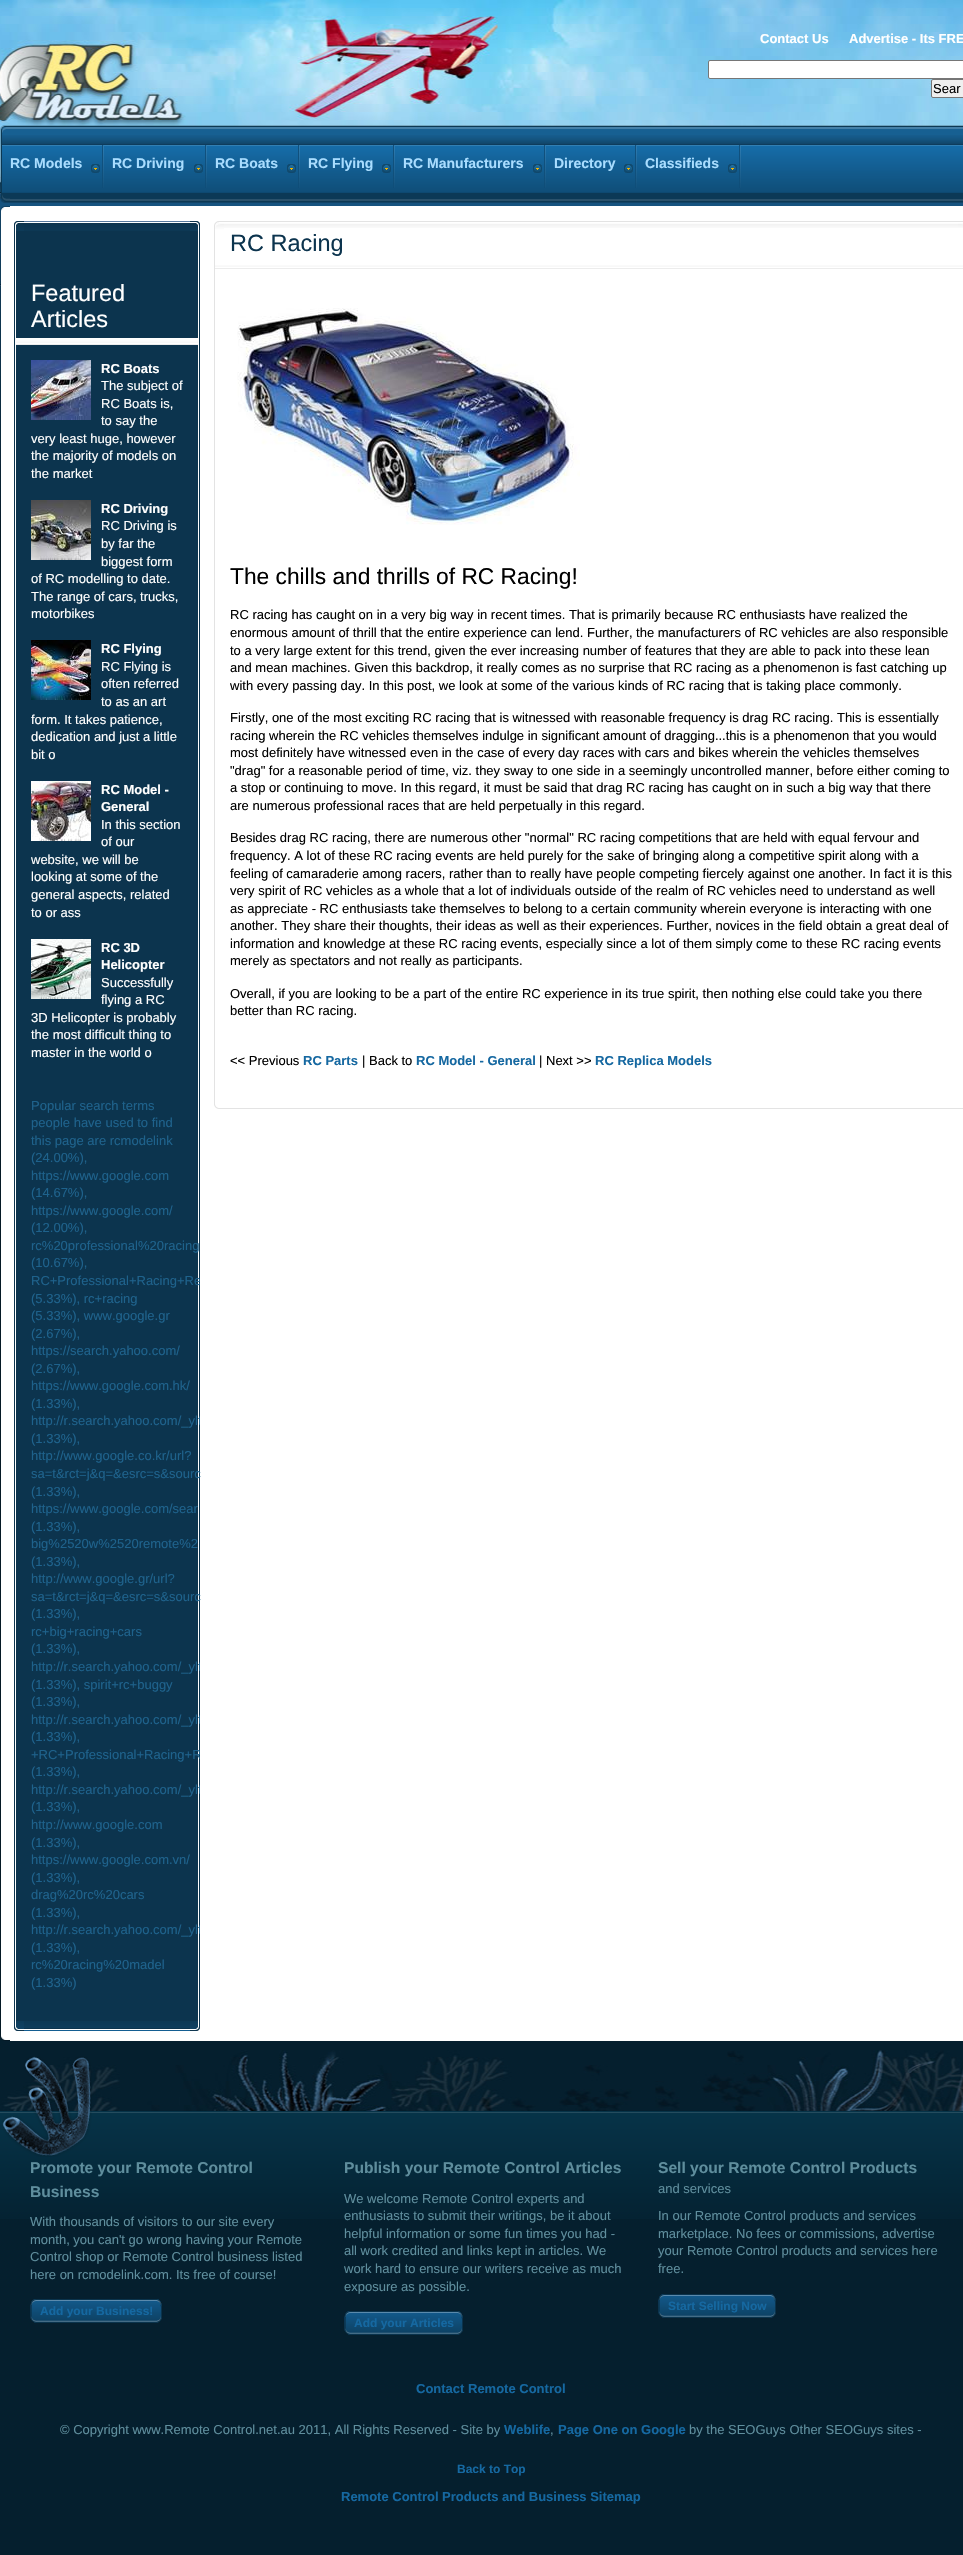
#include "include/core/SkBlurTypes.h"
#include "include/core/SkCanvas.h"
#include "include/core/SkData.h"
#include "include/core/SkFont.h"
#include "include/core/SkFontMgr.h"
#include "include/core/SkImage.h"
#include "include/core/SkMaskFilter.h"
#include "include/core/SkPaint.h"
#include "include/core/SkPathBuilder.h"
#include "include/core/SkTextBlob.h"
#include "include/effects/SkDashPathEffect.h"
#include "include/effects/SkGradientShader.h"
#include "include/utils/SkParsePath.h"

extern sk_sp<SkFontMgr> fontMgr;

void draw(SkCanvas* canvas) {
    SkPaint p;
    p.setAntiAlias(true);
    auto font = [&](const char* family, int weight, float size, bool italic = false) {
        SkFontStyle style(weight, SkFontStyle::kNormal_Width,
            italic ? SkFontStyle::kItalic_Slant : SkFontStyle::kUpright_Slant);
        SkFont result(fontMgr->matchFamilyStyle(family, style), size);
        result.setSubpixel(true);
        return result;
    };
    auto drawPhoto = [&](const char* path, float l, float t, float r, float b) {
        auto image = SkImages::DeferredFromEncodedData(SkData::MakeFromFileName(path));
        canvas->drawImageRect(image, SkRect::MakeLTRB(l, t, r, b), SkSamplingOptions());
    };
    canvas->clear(0xFF051F2E);
    drawPhoto("media/1.png", 0, 0, 963, 520);
    auto font1 = font("Liberation Sans", 700, 13);
    p.setColor(0xFFFFFFFF);
    canvas->drawString("Contact Us", 760, 43, font1, p);
    canvas->drawString("Advertise - Its FRE", 849, 43, font1, p);
    canvas->drawRoundRect(SkRect::MakeLTRB(708.5f, 60.5f, 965.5f, 78.5f), 1.5f, 1.5f, p);
    p.setStyle(SkPaint::kStroke_Style);
    p.setStrokeWidth(1);
    p.setColor(0xFF767676);
    canvas->drawRoundRect(SkRect::MakeLTRB(708.5f, 60.5f, 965.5f, 78.5f), 1.5f, 1.5f, p);
    p.setStyle(SkPaint::kFill_Style);
    p.setColor(0xFFEFEFEF);
    canvas->drawRoundRect(SkRect::MakeLTRB(931.5f, 79.5f, 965.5f, 97.5f), 1.5f, 1.5f, p);
    p.setStyle(SkPaint::kStroke_Style);
    p.setColor(0xFF767676);
    canvas->drawRoundRect(SkRect::MakeLTRB(931.5f, 79.5f, 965.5f, 97.5f), 1.5f, 1.5f, p);
    auto font2 = font("Liberation Sans", 400, 13);
    p.setStyle(SkPaint::kFill_Style);
    p.setColor(0xFF000000);
    canvas->drawString("Sear", 933, 93, font2, p);
    drawPhoto("media/2.png", 10, 125, 963, 135);
    drawPhoto("media/3.png", 0, 125, 10, 135);
    drawPhoto("media/4.png", 0, 135, 2, 193);
    drawPhoto("media/5.png", 2, 135, 963, 193);
    drawPhoto("media/6.png", 102, 145, 104, 188);
    drawPhoto("media/7.png", 91, 164, 100, 173);
    auto font3 = font("Liberation Sans", 700, 14);
    p.setColor(0xFFA9DDFF);
    canvas->drawString("RC Models", 10, 168, font3, p);
    drawPhoto("media/6.png", 205, 145, 207, 188);
    drawPhoto("media/7.png", 194, 164, 203, 173);
    canvas->drawString("RC Driving", 112, 168, font3, p);
    drawPhoto("media/6.png", 298, 145, 300, 188);
    drawPhoto("media/7.png", 287, 164, 296, 173);
    canvas->drawString("RC Boats", 215, 168, font3, p);
    drawPhoto("media/6.png", 393, 145, 395, 188);
    drawPhoto("media/7.png", 382, 164, 391, 173);
    canvas->drawString("RC Flying", 308, 168, font3, p);
    drawPhoto("media/6.png", 544, 145, 546, 188);
    drawPhoto("media/7.png", 533, 164, 542, 173);
    canvas->drawString("RC Manufacturers", 403, 168, font3, p);
    drawPhoto("media/6.png", 635, 145, 637, 188);
    drawPhoto("media/7.png", 624, 164, 633, 173);
    canvas->drawString("Directory", 554, 168, font3, p);
    drawPhoto("media/6.png", 739, 145, 741, 188);
    drawPhoto("media/7.png", 728, 164, 737, 173);
    canvas->drawString("Classifieds", 645, 168, font3, p);
    drawPhoto("media/8.png", 10, 193, 963, 203);
    drawPhoto("media/9.png", 0, 193, 10, 203);
    p.setColor(0xFFFFFFFF);
    canvas->drawRect(SkRect::MakeLTRB(10, 206, 963, 216), p);
    drawPhoto("media/10.png", 0, 206, 10, 216);
    canvas->drawRect(SkRect::MakeLTRB(2, 216, 963, 2031), p);
    drawPhoto("media/11.png", 0, 216, 2, 2031);
    drawPhoto("media/12.png", 24, 221, 190, 231);
    drawPhoto("media/13.png", 14, 221, 24, 231);
    drawPhoto("media/14.png", 190, 221, 200, 231);
    {
        const struct { float l, t, r, b; SkColor color; } items[] = {
            {16, 231, 198, 2021, 0xFF0C344E},
            {14, 231, 15, 2021, 0xFF0C344E},
            {199, 231, 200, 2021, 0xFF0C344E},
        };
        for (auto [l, t, r, b, color] : items) {
            p.setColor(color);
            canvas->drawRect(SkRect::MakeLTRB(l, t, r, b), p);
        }
    }
    drawPhoto("media/15.png", 16, 338, 198, 345);
    auto font4 = font("Liberation Sans", 400, 23.5f);
    p.setColor(0xFFFFFFFF);
    canvas->drawString("Featured", 31, 301, font4, p);
    canvas->drawString("Articles", 31, 327, font4, p);
    drawPhoto("media/16.png", 31, 360, 91, 420);
    canvas->drawString("RC Boats", 101, 373, font1, p);
    {
        const struct { const char* s; float x, y; } items[] = {
            {"The subject of", 101, 390},
            {"RC Boats is,", 101, 408},
            {"to say the", 101, 425},
            {"very least huge, however", 31, 443},
            {"the majority of models on", 31, 460},
            {"the market", 31, 478},
        };
        for (auto [s, x, y] : items) {
            canvas->drawString(s, x, y, font2, p);
        }
    }
    drawPhoto("media/17.png", 31, 500, 91, 560);
    canvas->drawString("RC Driving", 101, 513, font1, p);
    {
        const struct { const char* s; float x, y; } items[] = {
            {"RC Driving is", 101, 530},
            {"by far the", 101, 548},
            {"biggest form", 101, 566},
            {"of RC modelling to date.", 31, 583},
            {"The range of cars, trucks,", 31, 601},
            {"motorbikes", 31, 618},
        };
        for (auto [s, x, y] : items) {
            canvas->drawString(s, x, y, font2, p);
        }
    }
    drawPhoto("media/18.png", 31, 640, 91, 700);
    canvas->drawString("RC Flying", 101, 653, font1, p);
    {
        const struct { const char* s; float x, y; } items[] = {
            {"RC Flying is", 101, 671},
            {"often referred", 101, 688},
            {"to as an art", 101, 706},
            {"form. It takes patience,", 31, 724},
            {"dedication and just a little", 31, 741},
            {"bit o", 31, 759},
        };
        for (auto [s, x, y] : items) {
            canvas->drawString(s, x, y, font2, p);
        }
    }
    drawPhoto("media/19.png", 31, 781, 91, 841);
    canvas->drawString("RC Model -", 101, 794, font1, p);
    canvas->drawString("General", 101, 811, font1, p);
    {
        const struct { const char* s; float x, y; } items[] = {
            {"In this section", 101, 829},
            {"of our", 101, 846},
            {"website, we will be", 31, 864},
            {"looking at some of the", 31, 881},
            {"general aspects, related", 31, 899},
            {"to or ass", 31, 917},
        };
        for (auto [s, x, y] : items) {
            canvas->drawString(s, x, y, font2, p);
        }
    }
    drawPhoto("media/20.png", 31, 939, 91, 999);
    canvas->drawString("RC 3D", 101, 952, font1, p);
    canvas->drawString("Helicopter", 101, 969, font1, p);
    {
        const struct { const char* s; float x, y; } items[] = {
            {"Successfully", 101, 987},
            {"flying a RC", 101, 1004},
            {"3D Helicopter is probably", 31, 1022},
            {"the most difficult thing to", 31, 1039},
            {"master in the world o", 31, 1057},
        };
        for (auto [s, x, y] : items) {
            canvas->drawString(s, x, y, font2, p);
        }
    }
    p.setColor(0xFF1E628C);
    {
        const struct { const char* s; float x, y; } items[] = {
            {"Popular search terms", 31, 1110},
            {"people have used to find", 31, 1127},
            {"this page are rcmodelink", 31, 1145},
            {"(24.00%),", 31, 1162},
            {"https://www.google.com", 31, 1180},
            {"(14.67%),", 31, 1197},
            {"https://www.google.com/", 31, 1215},
            {"(12.00%),", 31, 1232},
            {"rc%20professional%20racing", 31, 1250},
            {"(10.67%),", 31, 1267},
        };
        for (auto [s, x, y] : items) {
            canvas->drawString(s, x, y, font2, p);
        }
    }
    canvas->save();
    canvas->clipRect(SkRect::MakeLTRB(14, 231, 200, 2021));
    canvas->drawString("RC+Professional+Racing+Re", 31, 1285, font2, p);
    canvas->restore();
    {
        const struct { const char* s; float x, y; } items[] = {
            {"(5.33%), rc+racing", 31, 1303},
            {"(5.33%), www.google.gr", 31, 1320},
            {"(2.67%),", 31, 1338},
            {"https://search.yahoo.com/", 31, 1355},
            {"(2.67%),", 31, 1373},
            {"https://www.google.com.hk/", 31, 1390},
            {"(1.33%),", 31, 1408},
        };
        for (auto [s, x, y] : items) {
            canvas->drawString(s, x, y, font2, p);
        }
    }
    canvas->save();
    canvas->clipRect(SkRect::MakeLTRB(14, 231, 200, 2021));
    canvas->drawString("http://r.search.yahoo.com/_ylt", 31, 1425, font2, p);
    canvas->restore();
    {
        const struct { const char* s; float x, y; } items[] = {
            {"(1.33%),", 31, 1443},
            {"http://www.google.co.kr/url?", 31, 1460},
            {"sa=t&rct=j&q=&esrc=s&sourc", 31, 1478},
            {"(1.33%),", 31, 1496},
            {"https://www.google.com/sear", 31, 1513},
            {"(1.33%),", 31, 1531},
            {"big%2520w%2520remote%2", 31, 1548},
            {"(1.33%),", 31, 1566},
            {"http://www.google.gr/url?", 31, 1583},
            {"sa=t&rct=j&q=&esrc=s&sourc", 31, 1601},
            {"(1.33%),", 31, 1618},
            {"rc+big+racing+cars", 31, 1636},
            {"(1.33%),", 31, 1653},
        };
        for (auto [s, x, y] : items) {
            canvas->drawString(s, x, y, font2, p);
        }
    }
    canvas->save();
    canvas->clipRect(SkRect::MakeLTRB(14, 231, 200, 2021));
    canvas->drawString("http://r.search.yahoo.com/_ylt", 31, 1671, font2, p);
    canvas->restore();
    canvas->drawString("(1.33%), spirit+rc+buggy", 31, 1689, font2, p);
    canvas->drawString("(1.33%),", 31, 1706, font2, p);
    canvas->save();
    canvas->clipRect(SkRect::MakeLTRB(14, 231, 200, 2021));
    canvas->drawString("http://r.search.yahoo.com/_ylt", 31, 1724, font2, p);
    canvas->restore();
    canvas->drawString("(1.33%),", 31, 1741, font2, p);
    canvas->save();
    canvas->clipRect(SkRect::MakeLTRB(14, 231, 200, 2021));
    canvas->drawString("+RC+Professional+Racing+R", 31, 1759, font2, p);
    canvas->restore();
    canvas->drawString("(1.33%),", 31, 1776, font2, p);
    canvas->save();
    canvas->clipRect(SkRect::MakeLTRB(14, 231, 200, 2021));
    canvas->drawString("http://r.search.yahoo.com/_ylt", 31, 1794, font2, p);
    canvas->restore();
    {
        const struct { const char* s; float x, y; } items[] = {
            {"(1.33%),", 31, 1811},
            {"http://www.google.com", 31, 1829},
            {"(1.33%),", 31, 1847},
            {"https://www.google.com.vn/", 31, 1864},
            {"(1.33%),", 31, 1882},
            {"drag%20rc%20cars", 31, 1899},
            {"(1.33%),", 31, 1917},
        };
        for (auto [s, x, y] : items) {
            canvas->drawString(s, x, y, font2, p);
        }
    }
    canvas->save();
    canvas->clipRect(SkRect::MakeLTRB(14, 231, 200, 2021));
    canvas->drawString("http://r.search.yahoo.com/_ylt", 31, 1934, font2, p);
    canvas->restore();
    {
        const struct { const char* s; float x, y; } items[] = {
            {"(1.33%),", 31, 1952},
            {"rc%20racing%20madel", 31, 1969},
            {"(1.33%)", 31, 1987},
        };
        for (auto [s, x, y] : items) {
            canvas->drawString(s, x, y, font2, p);
        }
    }
    drawPhoto("media/21.png", 24, 2021, 190, 2031);
    drawPhoto("media/22.png", 14, 2021, 24, 2031);
    drawPhoto("media/23.png", 190, 2021, 200, 2031);
    drawPhoto("media/24.png", 224, 221, 958, 228);
    drawPhoto("media/25.png", 214, 221, 224, 231);
    drawPhoto("media/26.png", 958, 221, 963, 228);
    p.setColor(0xFFE3E3E3);
    canvas->drawRect(SkRect::MakeLTRB(214, 231, 215, 1099), p);
    drawPhoto("media/27.png", 215, 265, 963, 269);
    p.setColor(0xFF0C344E);
    canvas->drawString("RC Racing", 230, 251, font4, p);
    drawPhoto("media/28.png", 237, 308, 580, 525);
    auto font5 = font("Liberation Sans", 400, 22.75f);
    p.setColor(0xFF000000);
    canvas->drawString("The chills and thrills of RC Racing!", 230, 584, font5, p);
    {
        const struct { const char* s; float x, y; } items[] = {
            {"RC racing has caught on in a very big way in recent times. That is primarily because RC enthusiasts have realized the", 230, 619},
            {"enormous amount of thrill that the entire experience can lend. Further, the manufacturers of RC vehicles are also responsible", 230, 637},
            {"to a very large extent for this trend, given the ever increasing number of features that they are able to pack into these lean", 230, 655},
            {"and mean machines. Given this backdrop, it really comes as no surprise that RC racing as a phenomenon is fast catching up", 230, 672},
            {"with every passing day. In this post, we look at some of the various kinds of RC racing that is taking place commonly.", 230, 690},
            {"Firstly, one of the most exciting RC racing that is witnessed with reasonable frequency is drag RC racing. This is essentially", 230, 722},
            {"racing wherein the RC vehicles themselves indulge in significant amount of dragging...this is a phenomenon that you would", 230, 740},
            {"most definitely have witnessed even in the case of every day races with cars and bikes wherein the vehicles themselves", 230, 757},
            {"\"drag\" for a reasonable period of time, viz. they sway to one side in a seemingly uncontrolled manner, before either coming to", 230, 775},
            {"a stop or continuing to move. In this regard, it must be said that drag RC racing has caught on in such a big way that there", 230, 792},
            {"are numerous professional races that are held perpetually in this regard.", 230, 810},
            {"Besides drag RC racing, there are numerous other \"normal\" RC racing competitions that are held with equal fervour and", 230, 842},
            {"frequency. A lot of these RC racing events are held purely for the sake of bringing along a competitive spirit along with a", 230, 860},
            {"feeling of camaraderie among racers, rather than to really have people competing fiercely against one another. In fact it is this", 230, 878},
            {"very spirit of RC vehicles as a whole that a lot of individuals outside of the realm of RC vehicles need to understand as well", 230, 895},
            {"as appreciate - RC enthusiasts take themselves to belong to a certain community wherein everyone is interacting with one", 230, 913},
            {"another. They share their thoughts, their ideas as well as their experiences. Further, novices in the field obtain a great deal of", 230, 930},
            {"information and knowledge at these RC racing events, especially since a lot of them simply come to these RC racing events", 230, 948},
            {"merely as spectators and not really as participants.", 230, 965},
            {"Overall, if you are looking to be a part of the entire RC experience in its true spirit, then nothing else could take you there", 230, 998},
            {"better than RC racing.", 230, 1015},
            {"<< Previous", 230, 1065},
        };
        for (auto [s, x, y] : items) {
            canvas->drawString(s, x, y, font2, p);
        }
    }
    p.setColor(0xFF1568A1);
    canvas->drawString("RC Parts", 303, 1065, font1, p);
    p.setColor(0xFF000000);
    canvas->drawString("| Back to", 362, 1065, font2, p);
    p.setColor(0xFF1568A1);
    canvas->drawString("RC Model - General", 416, 1065, font1, p);
    p.setColor(0xFF000000);
    canvas->drawString("| Next >>", 539, 1065, font2, p);
    p.setColor(0xFF1568A1);
    canvas->drawString("RC Replica Models", 595, 1065, font1, p);
    p.setColor(0xFFE3E3E3);
    canvas->drawRect(SkRect::MakeLTRB(224, 1108, 963, 1109), p);
    drawPhoto("media/29.png", 214, 1099, 224, 1109);
    p.setColor(0xFFFFFFFF);
    canvas->drawRect(SkRect::MakeLTRB(10, 2031, 963, 2041), p);
    drawPhoto("media/30.png", 0, 2031, 10, 2041);
    drawPhoto("media/31.png", 0, 2050, 963, 2111);
    drawPhoto("media/33.png", 0, 2111, 963, 2219);
    drawPhoto("media/32.png", 2, 2056, 92, 2157);
    auto font6 = font("Liberation Sans", 700, 15.6f);
    p.setColor(0xFF5F8E9D);
    canvas->drawString("Promote your Remote Control", 30, 2173, font6, p);
    canvas->drawString("Business", 30, 2197, font6, p);
    {
        const struct { const char* s; float x, y; } items[] = {
            {"With thousands of visitors to our site every", 30, 2226},
            {"month, you can't go wrong having your Remote", 30, 2244},
            {"Control shop or Remote Control business listed", 30, 2261},
            {"here on rcmodelink.com. Its free of course!", 30, 2279},
        };
        for (auto [s, x, y] : items) {
            canvas->drawString(s, x, y, font2, p);
        }
    }
    drawPhoto("media/34.png", 30, 2299, 38, 2323);
    drawPhoto("media/35.png", 38, 2299, 155, 2323);
    drawPhoto("media/36.png", 155, 2299, 162, 2323);
    auto font7 = font("Liberation Sans", 700, 12);
    p.setColor(0xFF1568A1);
    canvas->drawString("Add your Business!", 40, 2315, font7, p);
    p.setColor(0xFF5F8E9D);
    canvas->drawString("Publish your Remote Control Articles", 344, 2173, font6, p);
    {
        const struct { const char* s; float x, y; } items[] = {
            {"We welcome Remote Control experts and", 344, 2203},
            {"enthusiasts to submit their writings, be it about", 344, 2220},
            {"helpful information or some fun times you had -", 344, 2238},
            {"all work credited and links kept in articles. We", 344, 2255},
            {"work hard to ensure our writers receive as much", 344, 2273},
            {"exposure as possible.", 344, 2291},
        };
        for (auto [s, x, y] : items) {
            canvas->drawString(s, x, y, font2, p);
        }
    }
    drawPhoto("media/34.png", 344, 2311, 352, 2335);
    drawPhoto("media/37.png", 352, 2311, 456, 2335);
    drawPhoto("media/36.png", 456, 2311, 463, 2335);
    p.setColor(0xFF1568A1);
    canvas->drawString("Add your Articles", 354, 2327, font7, p);
    p.setColor(0xFF5F8E9D);
    canvas->drawString("Sell your Remote Control Products", 658, 2173, font6, p);
    {
        const struct { const char* s; float x, y; } items[] = {
            {"and services", 658, 2193},
            {"In our Remote Control products and services", 658, 2220},
            {"marketplace. No fees or commissions, advertise", 658, 2238},
            {"your Remote Control products and services here", 658, 2255},
            {"free.", 658, 2273},
        };
        for (auto [s, x, y] : items) {
            canvas->drawString(s, x, y, font2, p);
        }
    }
    drawPhoto("media/34.png", 658, 2294, 666, 2318);
    drawPhoto("media/38.png", 666, 2294, 769, 2318);
    drawPhoto("media/36.png", 769, 2294, 776, 2318);
    p.setColor(0xFF1568A1);
    canvas->drawString("Start Selling Now", 668, 2310, font7, p);
    canvas->drawString("Contact Remote Control", 416, 2393, font1, p);
    p.setColor(0xFF5F8E9D);
    canvas->drawString("© Copyright www.Remote Control.net.au 2011, All Rights Reserved - Site by", 60, 2434, font2, p);
    p.setColor(0xFF1568A1);
    canvas->drawString("Weblife", 504, 2434, font1, p);
    p.setColor(0xFF5F8E9D);
    canvas->drawString(",", 550, 2434, font2, p);
    p.setColor(0xFF1568A1);
    canvas->drawString("Page One on Google", 558, 2434, font1, p);
    p.setColor(0xFF5F8E9D);
    canvas->drawString("by the SEOGuys Other SEOGuys sites -", 689, 2434, font2, p);
    p.setColor(0xFF1568A1);
    canvas->drawString("Back to Top", 457, 2473, font7, p);
    canvas->drawString("Remote Control Products and Business Sitemap", 341, 2501, font1, p);
}
